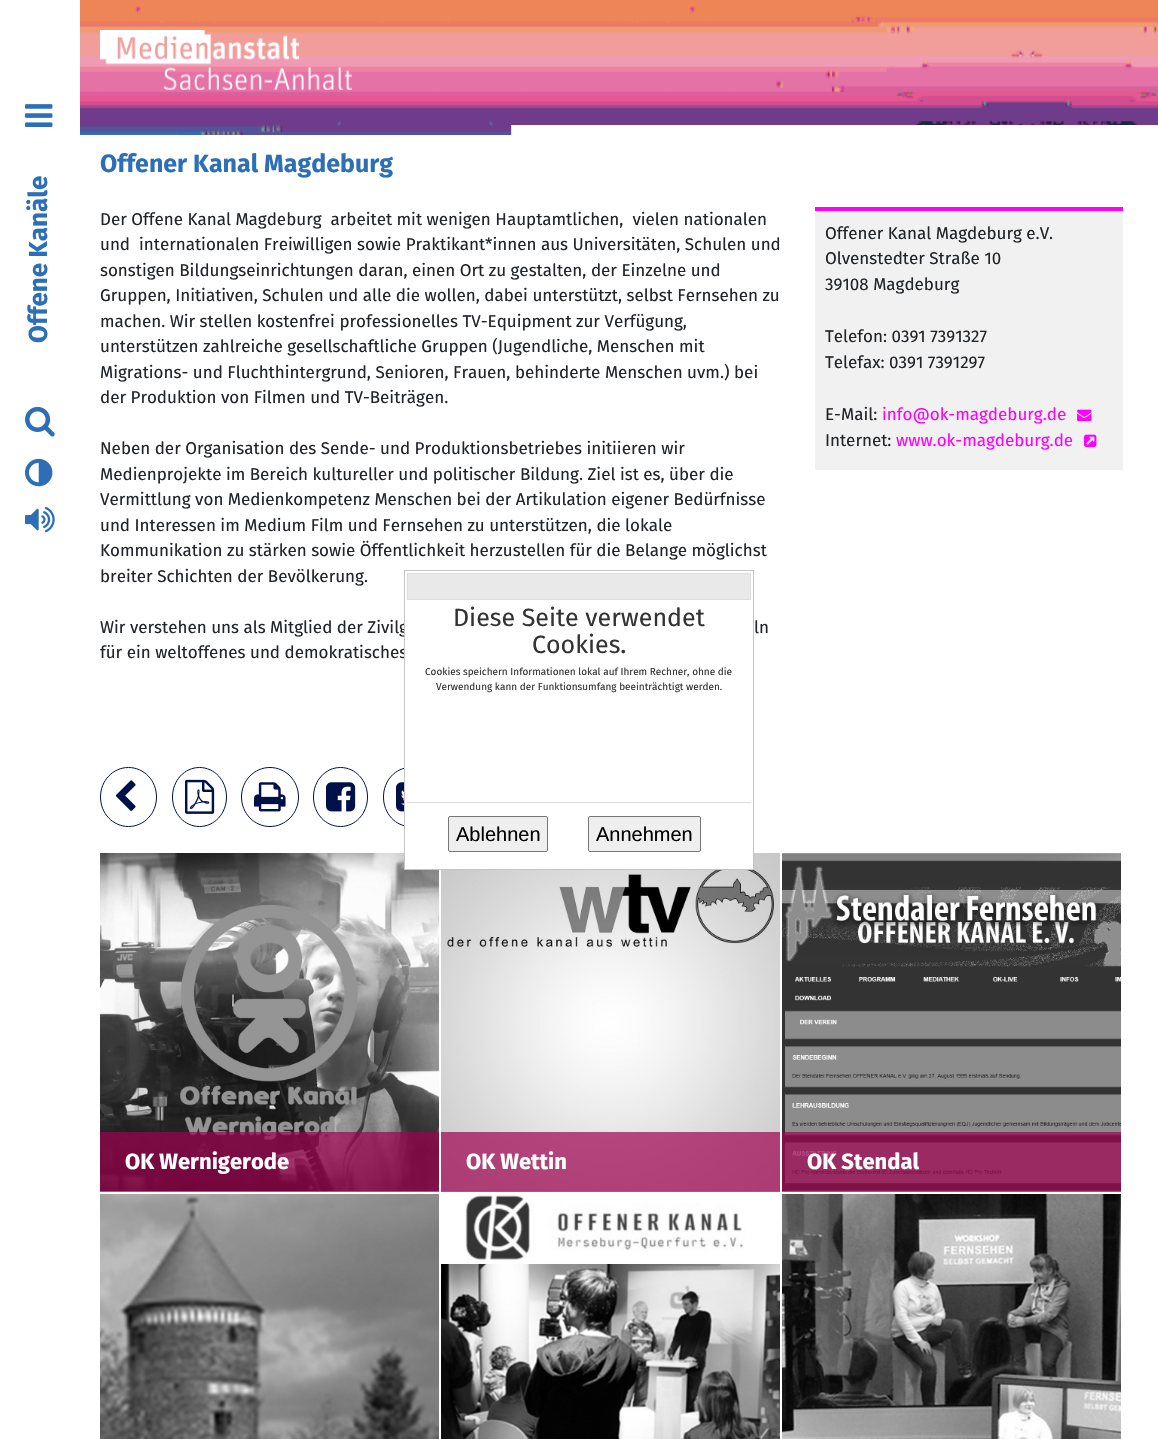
#include "include/core/SkBlurTypes.h"
#include "include/core/SkCanvas.h"
#include "include/core/SkData.h"
#include "include/core/SkFont.h"
#include "include/core/SkFontMgr.h"
#include "include/core/SkImage.h"
#include "include/core/SkMaskFilter.h"
#include "include/core/SkPaint.h"
#include "include/core/SkPathBuilder.h"
#include "include/core/SkTextBlob.h"
#include "include/effects/SkDashPathEffect.h"
#include "include/effects/SkGradientShader.h"
#include "include/utils/SkParsePath.h"

extern sk_sp<SkFontMgr> fontMgr;

void draw(SkCanvas* canvas) {
    SkPaint p;
    p.setAntiAlias(true);
    auto font = [&](const char* family, int weight, float size, bool italic = false) {
        SkFontStyle style(weight, SkFontStyle::kNormal_Width,
            italic ? SkFontStyle::kItalic_Slant : SkFontStyle::kUpright_Slant);
        SkFont result(fontMgr->matchFamilyStyle(family, style), size);
        result.setSubpixel(true);
        return result;
    };
    auto drawTracked = [&](const char* s, float x, float y, const SkFont& font, const SkPaint& ink, float letter, float word) {
        std::vector<SkGlyphID> glyphs(font.countText(s, strlen(s), SkTextEncoding::kUTF8));
        std::vector<float> xs(glyphs.size());
        font.textToGlyphs(s, strlen(s), SkTextEncoding::kUTF8, glyphs);
        font.getXPos(glyphs, xs, x);
        float extra = 0;
        for (size_t i = 0; i < glyphs.size(); i++) {
            xs[i] += extra;
            extra += letter + word * (glyphs[i] == font.unicharToGlyph(' '));
        }
        canvas->drawTextBlob(SkTextBlob::MakeFromPosHGlyphs(glyphs, xs, y, font), 0, 0, ink);
    };
    auto drawPhoto = [&](const char* path, float l, float t, float r, float b) {
        auto image = SkImages::DeferredFromEncodedData(SkData::MakeFromFileName(path));
        canvas->drawImageRect(image, SkRect::MakeLTRB(l, t, r, b), SkSamplingOptions());
    };
    canvas->clear(0xFFFFFFFF);
    drawPhoto("media/1.png", 80, 0, 1158, 135);
    drawPhoto("media/2.png", 100, 30, 352, 90);
    drawPhoto("media/3.png", 25, 104, 53, 127);
    auto font1 = font("Fira Sans", 700, 26);
    p.setColor(0xFF2C6FB7);
    canvas->save();
    canvas->rotate(-90, 47, 343);
    drawTracked("Offene Kanäle", 47, 343, font1, p, 0, -1);
    canvas->restore();
    drawPhoto("media/4.png", 25, 406, 55, 437);
    drawPhoto("media/5.png", 25, 458, 53, 487);
    drawPhoto("media/6.png", 25, 506, 55, 533);
    drawPhoto("media/7.png", 80, 125, 1158, 1439);
    auto font2 = font("Fira Sans", 700, 25);
    canvas->drawString("Offener Kanal Magdeburg", 100, 172, font2, p);
    auto font3 = font("Fira Sans", 400, 17);
    p.setColor(0xFF212529);
    {
        const struct { const char* s; float x, y; } items[] = {
            {"Der Offene Kanal Magdeburg  arbeitet mit wenigen Hauptamtlichen,  vielen nationalen", 100, 225},
            {"und  internationalen Freiwilligen sowie Praktikant*innen aus Universitäten, Schulen und", 100, 250},
            {"sonstigen Bildungseinrichtungen daran, einen Ort zu gestalten, der Einzelne und", 100, 276},
            {"Gruppen, Initiativen, Schulen und alle die wollen, dabei unterstützt, selbst Fernsehen zu", 100, 301},
            {"machen. Wir stellen kostenfrei professionelles TV-Equipment zur Verfügung,", 100, 327},
            {"unterstützen zahlreiche gesellschaftliche Gruppen (Jugendliche, Menschen mit", 100, 352},
            {"Migrations- und Fluchthintergrund, Senioren, Frauen, behinderte Menschen uvm.) bei", 100, 378},
            {"der Produktion von Filmen und TV-Beiträgen.", 100, 403},
            {"Neben der Organisation des Sende- und Produktionsbetriebes initiieren wir", 100, 454},
            {"Medienprojekte im Bereich kultureller und politischer Bildung. Ziel ist es, über die", 100, 480},
            {"Vermittlung von Medienkompetenz Menschen bei der Artikulation eigener Bedürfnisse", 100, 505},
            {"und Interessen im Medium Film und Fernsehen zu unterstützen, die lokale", 100, 531},
            {"Kommunikation zu stärken sowie Öffentlichkeit herzustellen für die Belange möglichst", 100, 556},
            {"breiter Schichten der Bevölkerung.", 100, 582},
            {"Wir verstehen uns als Mitglied der Zivilg", 100, 633},
            {"ln", 754, 633},
            {"für ein weltoffenes und demokratisches", 100, 658},
        };
        for (auto [s, x, y] : items) {
            canvas->drawString(s, x, y, font3, p);
        }
    }
    p.setColor(0xFFF1F1F1);
    canvas->drawRect(SkRect::MakeLTRB(815, 211, 1123, 470), p);
    p.setColor(0xFFFF00FF);
    canvas->drawRect(SkRect::MakeLTRB(815, 207, 1123, 211), p);
    p.setColor(0xFF212529);
    {
        const struct { const char* s; float x, y; } items[] = {
            {"Offener Kanal Magdeburg e.V.", 825, 239},
            {"Olvenstedter Straße 10", 825, 264},
            {"39108 Magdeburg", 825, 290},
            {"Telefon: 0391 7391327", 825, 342},
            {"Telefax: 0391 7391297", 825, 368},
            {"E-Mail:", 825, 420},
        };
        for (auto [s, x, y] : items) {
            canvas->drawString(s, x, y, font3, p);
        }
    }
    p.setColor(0xFFFF00FF);
    canvas->drawString("info@ok-magdeburg.de", 882, 420, font3, p);
    drawPhoto("media/8.png", 1077, 409, 1092, 421);
    p.setColor(0xFF212529);
    canvas->drawString("Internet:", 825, 446, font3, p);
    p.setColor(0xFFFF00FF);
    canvas->drawString("www.ok-magdeburg.de", 896, 446, font3, p);
    drawPhoto("media/9.png", 1084, 434, 1097, 447);
    p.setStyle(SkPaint::kStroke_Style);
    p.setStrokeWidth(1);
    p.setColor(0xFF001049);
    canvas->drawPath(SkPathBuilder().moveTo(128.5f, 767.5f).cubicTo(144, 767.5f, 156.5f, 780.5f, 156.5f, 797).cubicTo(156.5f, 813.5f, 144, 826.5f, 128.5f, 826.5f).cubicTo(113, 826.5f, 100.5f, 813.5f, 100.5f, 797).cubicTo(100.5f, 780.5f, 113, 767.5f, 128.5f, 767.5f).close().detach(), p);
    drawPhoto("media/10.png", 115, 780, 136, 811);
    canvas->drawPath(SkPathBuilder().moveTo(199.5f, 767.5f).cubicTo(214.5f, 767.5f, 226.5f, 780.5f, 226.5f, 797).cubicTo(226.5f, 813.5f, 214.5f, 826.5f, 199.5f, 826.5f).cubicTo(184.5f, 826.5f, 172.5f, 813.5f, 172.5f, 797).cubicTo(172.5f, 780.5f, 184.5f, 767.5f, 199.5f, 767.5f).close().detach(), p);
    drawPhoto("media/11.png", 185, 779, 215, 814);
    canvas->drawPath(SkPathBuilder().moveTo(270, 767.5f).cubicTo(285.5f, 767.5f, 298.5f, 780.5f, 298.5f, 797).cubicTo(298.5f, 813.5f, 285.5f, 826.5f, 270, 826.5f).cubicTo(254.5f, 826.5f, 241.5f, 813.5f, 241.5f, 797).cubicTo(241.5f, 780.5f, 254.5f, 767.5f, 270, 767.5f).close().detach(), p);
    drawPhoto("media/12.png", 254, 782, 286, 812);
    canvas->drawPath(SkPathBuilder().moveTo(340.5f, 767.5f).cubicTo(355.5f, 767.5f, 367.5f, 780.5f, 367.5f, 797).cubicTo(367.5f, 813.5f, 355.5f, 826.5f, 340.5f, 826.5f).cubicTo(325.5f, 826.5f, 313.5f, 813.5f, 313.5f, 797).cubicTo(313.5f, 780.5f, 325.5f, 767.5f, 340.5f, 767.5f).close().detach(), p);
    drawPhoto("media/13.png", 326, 782, 356, 812);
    canvas->drawPath(SkPathBuilder().moveTo(410.5f, 767.5f).cubicTo(425.5f, 767.5f, 437.5f, 780.5f, 437.5f, 797).cubicTo(437.5f, 813.5f, 425.5f, 826.5f, 410.5f, 826.5f).cubicTo(395.5f, 826.5f, 383.5f, 813.5f, 383.5f, 797).cubicTo(383.5f, 780.5f, 395.5f, 767.5f, 410.5f, 767.5f).close().detach(), p);
    drawPhoto("media/14.png", 396, 782, 404, 812);
    drawPhoto("media/15.png", 100, 853, 439, 1191);
    p.setStyle(SkPaint::kFill_Style);
    p.setColor(0xB3A00050);
    canvas->drawRect(SkRect::MakeLTRB(100, 1132, 439, 1192), p);
    auto font4 = font("Fira Sans", 700, 22);
    p.setColor(0xFFFFFFFF);
    canvas->drawString("OK Wernigerode", 125, 1169, font4, p);
    drawPhoto("media/16.png", 441, 853, 780, 1191);
    p.setColor(0xB3A00050);
    canvas->drawRect(SkRect::MakeLTRB(441, 1132, 780, 1192), p);
    p.setColor(0xFFFFFFFF);
    canvas->drawString("OK Wettin", 466, 1169, font4, p);
    drawPhoto("media/17.png", 782, 853, 1121, 1191);
    p.setColor(0xB3A00050);
    canvas->drawRect(SkRect::MakeLTRB(782, 1132, 1121, 1192), p);
    p.setColor(0xFFFFFFFF);
    canvas->drawString("OK Stendal", 807, 1169, font4, p);
    drawPhoto("media/18.png", 100, 1194, 439, 1439);
    drawPhoto("media/19.png", 441, 1195, 780, 1439);
    drawPhoto("media/20.png", 782, 1194, 1121, 1439);
    canvas->drawRect(SkRect::MakeLTRB(405, 623, 753, 869), p);
    p.setStyle(SkPaint::kStroke_Style);
    p.setColor(0xFFC5C5C5);
    canvas->drawRect(SkRect::MakeLTRB(404.5f, 570.5f, 753.5f, 869.5f), p);
    p.setStyle(SkPaint::kFill_Style);
    p.setColor(0xFFE9E9E9);
    canvas->drawRect(SkRect::MakeLTRB(407.5f, 573.5f, 750.5f, 599.5f), p);
    p.setStyle(SkPaint::kStroke_Style);
    p.setColor(0xFFDDDDDD);
    canvas->drawRect(SkRect::MakeLTRB(407.5f, 573.5f, 750.5f, 599.5f), p);
    auto font5 = font("Fira Sans", 400, 25);
    p.setStyle(SkPaint::kFill_Style);
    p.setColor(0xFF333333);
    canvas->drawString("Diese Seite verwendet", 453, 626, font5, p);
    canvas->drawString("Cookies.", 532, 653, font5, p);
    auto font6 = font("Fira Sans", 400, 10);
    canvas->drawString("Cookies speichern Informationen lokal auf Ihrem Rechner, ohne die", 425, 675, font6, p);
    canvas->drawString("Verwendung kann der Funktionsumfang beeinträchtigt werden.", 436, 690, font6, p);
    p.setColor(0xFFDDDDDD);
    canvas->drawRect(SkRect::MakeLTRB(407, 802, 751, 803), p);
    p.setColor(0xFFEFEFEF);
    canvas->drawRoundRect(SkRect::MakeLTRB(448.5f, 816.5f, 547.5f, 851.5f), 1.5f, 1.5f, p);
    p.setStyle(SkPaint::kStroke_Style);
    p.setColor(0xFF767676);
    canvas->drawRoundRect(SkRect::MakeLTRB(448.5f, 816.5f, 547.5f, 851.5f), 1.5f, 1.5f, p);
    auto font7 = font("Liberation Sans", 400, 20);
    p.setStyle(SkPaint::kFill_Style);
    p.setColor(0xFF000000);
    canvas->drawString("Ablehnen", 456, 841, font7, p);
    p.setColor(0xFFEFEFEF);
    canvas->drawRoundRect(SkRect::MakeLTRB(588.5f, 816.5f, 700.5f, 851.5f), 1.5f, 1.5f, p);
    p.setStyle(SkPaint::kStroke_Style);
    p.setColor(0xFF767676);
    canvas->drawRoundRect(SkRect::MakeLTRB(588.5f, 816.5f, 700.5f, 851.5f), 1.5f, 1.5f, p);
    p.setStyle(SkPaint::kFill_Style);
    p.setColor(0xFF000000);
    canvas->drawString("Annehmen", 596, 841, font7, p);
}
